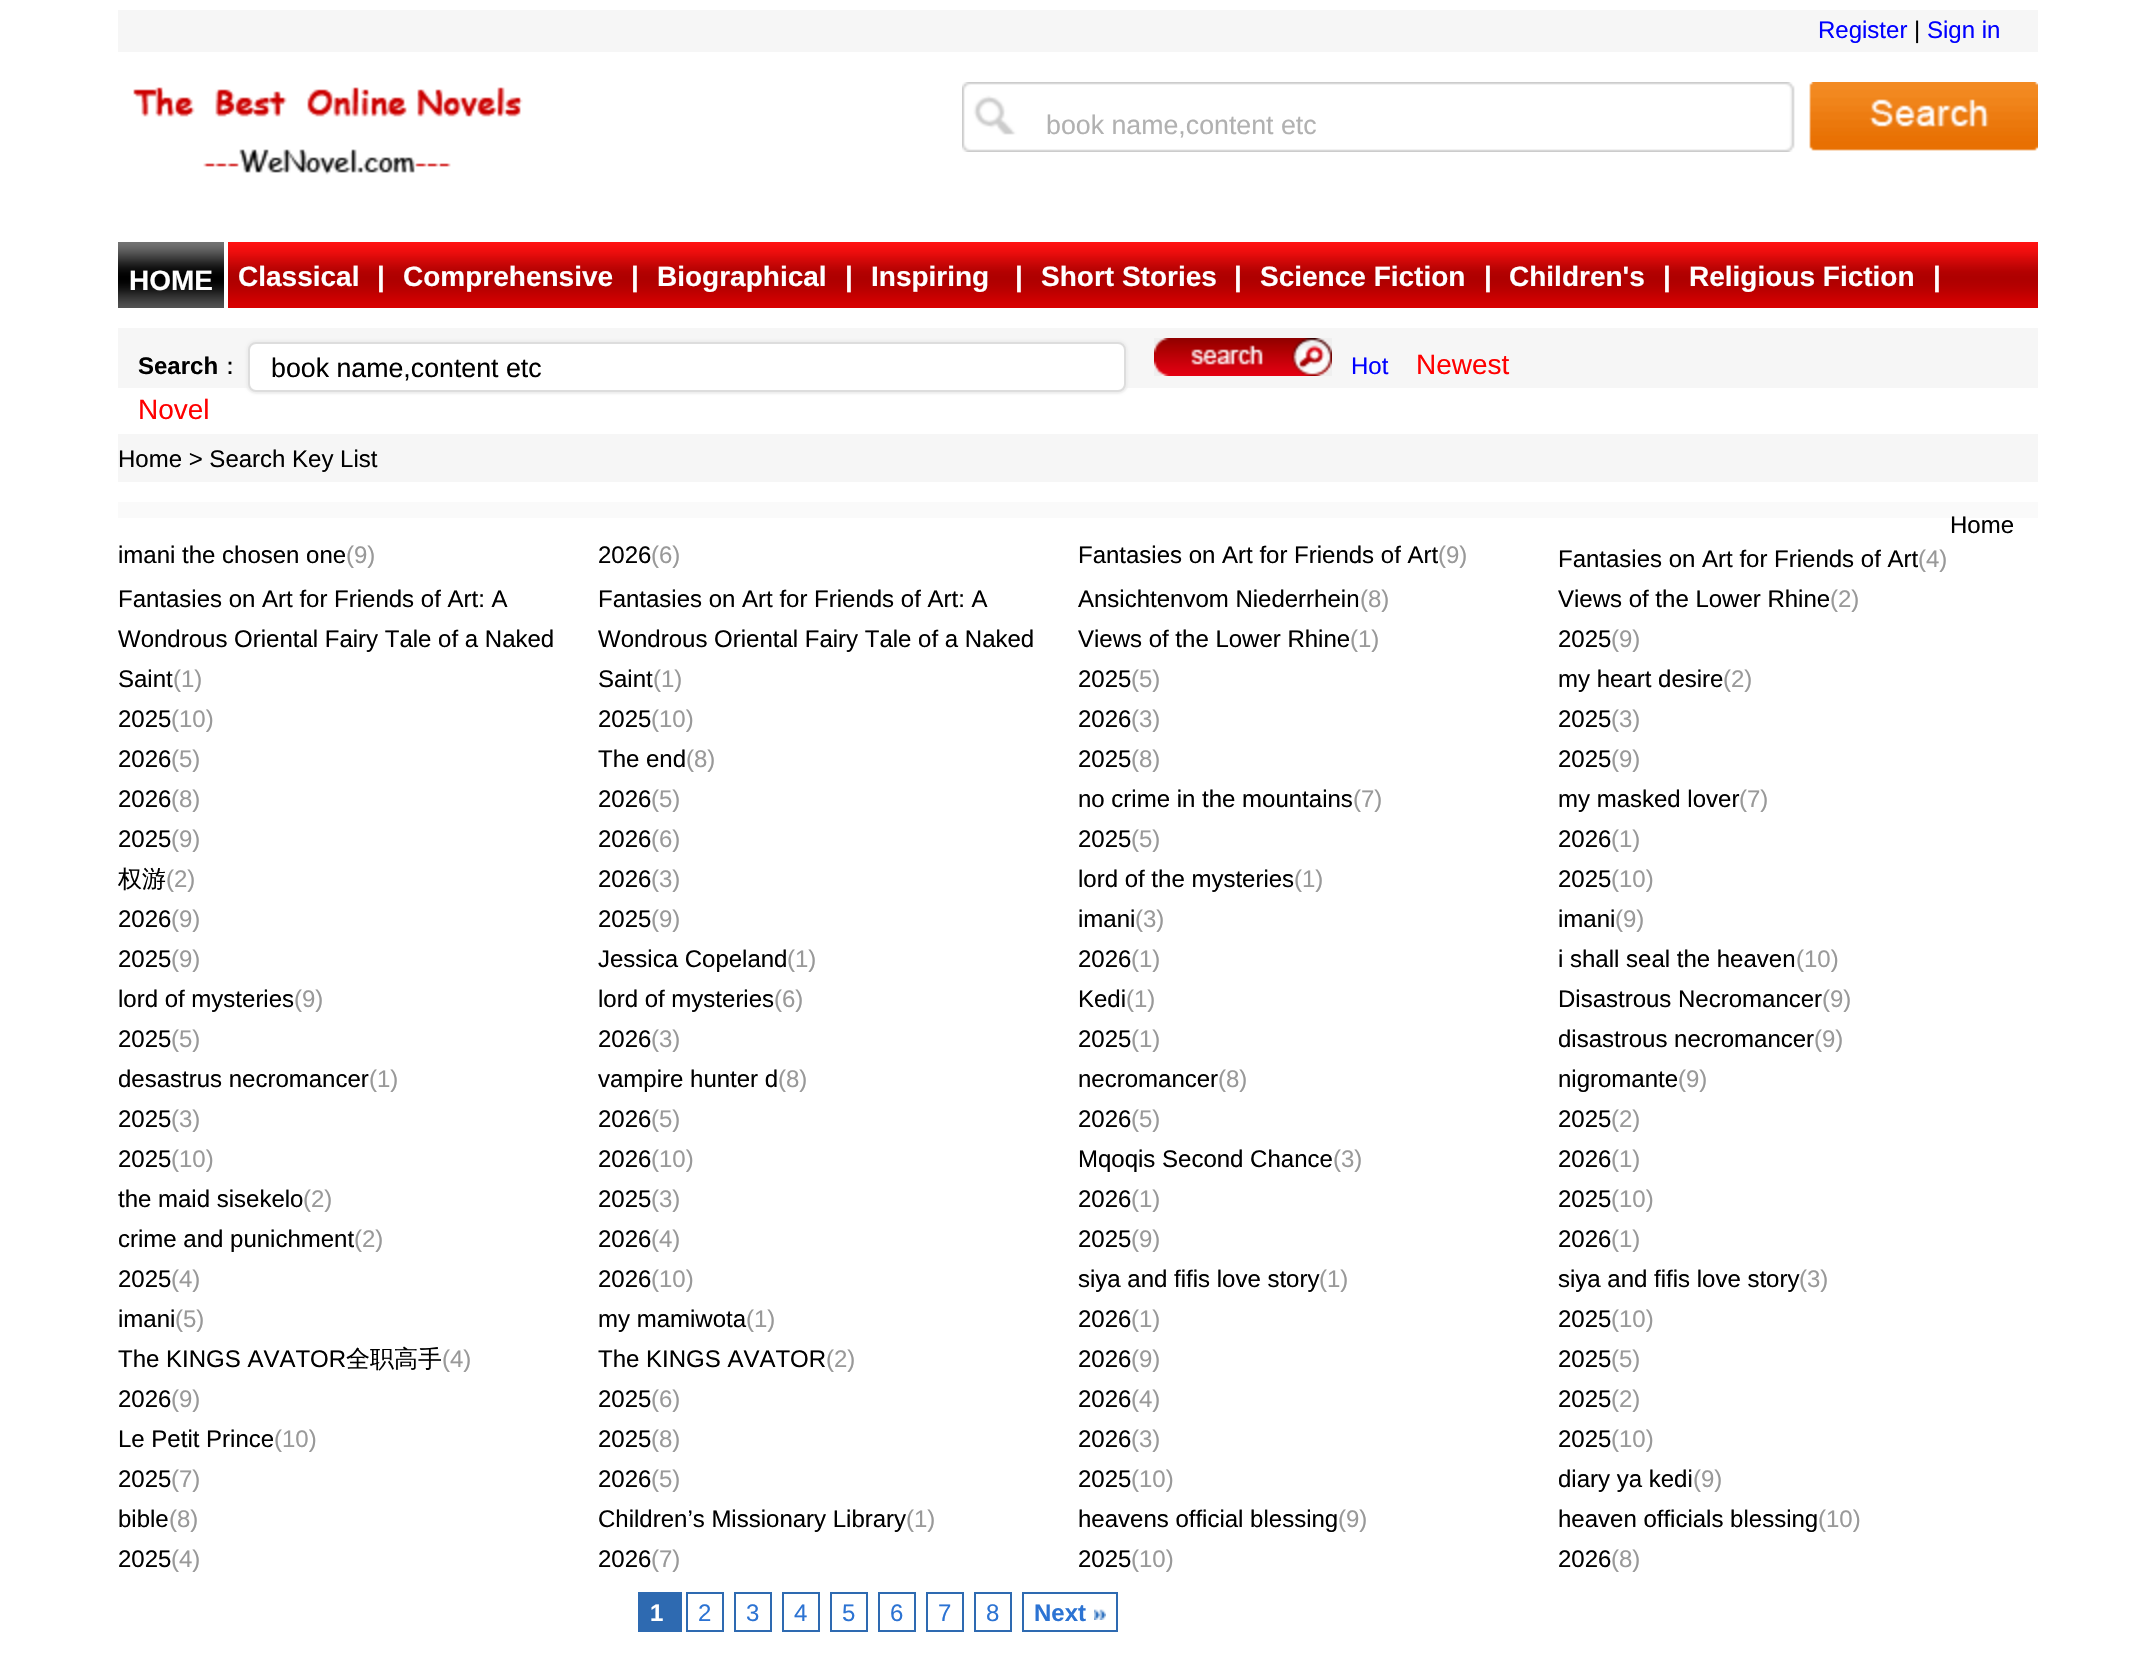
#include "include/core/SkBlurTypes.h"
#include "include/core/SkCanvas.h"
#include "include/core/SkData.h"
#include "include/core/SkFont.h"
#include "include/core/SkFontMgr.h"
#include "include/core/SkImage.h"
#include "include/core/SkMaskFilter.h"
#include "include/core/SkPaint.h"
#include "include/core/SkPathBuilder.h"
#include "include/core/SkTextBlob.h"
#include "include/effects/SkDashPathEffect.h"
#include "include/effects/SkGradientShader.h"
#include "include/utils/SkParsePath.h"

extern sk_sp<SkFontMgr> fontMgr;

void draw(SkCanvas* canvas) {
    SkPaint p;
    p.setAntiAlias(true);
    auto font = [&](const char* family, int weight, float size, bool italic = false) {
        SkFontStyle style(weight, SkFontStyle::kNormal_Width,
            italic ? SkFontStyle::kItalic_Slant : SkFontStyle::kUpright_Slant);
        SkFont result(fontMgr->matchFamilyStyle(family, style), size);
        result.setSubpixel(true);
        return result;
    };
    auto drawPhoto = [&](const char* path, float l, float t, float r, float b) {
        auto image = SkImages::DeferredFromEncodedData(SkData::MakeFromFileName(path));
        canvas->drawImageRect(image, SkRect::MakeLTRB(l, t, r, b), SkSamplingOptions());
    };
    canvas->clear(0xFFFFFFFF);
    p.setColor(0xFFF6F6F6);
    canvas->drawRect(SkRect::MakeLTRB(118, 10, 2038, 52), p);
    auto font1 = font("Liberation Sans", 400, 24);
    p.setColor(0xFF0000FF);
    canvas->drawString("Register", 1818, 38, font1, p);
    p.setColor(0xFF000000);
    canvas->drawString("|", 1914, 38, font1, p);
    p.setColor(0xFF0000FF);
    canvas->drawString("Sign in", 1927, 38, font1, p);
    drawPhoto("media/1.png", 133, 87, 523, 175);
    drawPhoto("media/2.png", 962, 82, 2038, 152);
    auto font2 = font("Liberation Sans", 400, 26.75f);
    p.setColor(0xFFB1B1B1);
    canvas->drawString("book name,content etc", 1046, 134, font2, p);
    drawPhoto("media/3.png", 118, 242, 224, 308);
    auto font3 = font("Liberation Sans", 700, 28);
    p.setColor(0xFFFFFFFF);
    canvas->drawString("HOME", 129, 290, font3, p);
    drawPhoto("media/4.png", 228, 242, 2038, 308);
    {
        const struct { const char* s; float x, y; } items[] = {
            {"Classical", 238, 286},
            {"|", 377, 286},
            {"Comprehensive", 403, 286},
            {"|", 631, 286},
            {"Biographical", 657, 286},
            {"|", 845, 286},
            {"Inspiring", 871, 286},
            {"|", 1015, 286},
            {"Short Stories", 1041, 286},
            {"|", 1234, 286},
            {"Science Fiction", 1260, 286},
            {"|", 1484, 286},
            {"Children's", 1509, 286},
            {"|", 1663, 286},
            {"Religious Fiction", 1689, 286},
            {"|", 1933, 286},
        };
        for (auto [s, x, y] : items) {
            canvas->drawString(s, x, y, font3, p);
        }
    }
    p.setColor(0xFFF6F6F6);
    canvas->drawRect(SkRect::MakeLTRB(118, 328, 2038, 388), p);
    auto font4 = font("Liberation Sans", 700, 24);
    p.setColor(0xFF000000);
    canvas->drawString("Search", 138, 374, font4, p);
    auto font5 = font("WenQuanYi Zen Hei", 500, 24);
    canvas->drawString("：", 218, 374, font5, p);
    p.setColor(0xFFEEEEEE);
    p.setMaskFilter(SkMaskFilter::MakeBlur(kNormal_SkBlurStyle, 1));
    canvas->drawRoundRect(SkRect::MakeLTRB(246, 340, 1128, 394), 10, 10, p);
    p.setMaskFilter(nullptr);
    p.setColor(0xFFFFFFFF);
    canvas->drawRoundRect(SkRect::MakeLTRB(249, 343, 1125, 391), 7, 7, p);
    p.setStyle(SkPaint::kStroke_Style);
    p.setStrokeWidth(2);
    p.setColor(0xFFDDDDDD);
    canvas->drawRoundRect(SkRect::MakeLTRB(249, 343, 1125, 391), 7, 7, p);
    p.setStyle(SkPaint::kFill_Style);
    p.setColor(0xFF000000);
    canvas->drawString("book name,content etc", 271, 377, font2, p);
    p.setColor(0xFFEFEFEF);
    canvas->drawRect(SkRect::MakeLTRB(1154, 338, 1332, 376), p);
    drawPhoto("media/5.png", 1154, 338, 1332, 376);
    p.setColor(0xFF0000FF);
    canvas->drawString("Hot", 1351, 374, font1, p);
    auto font6 = font("Liberation Sans", 400, 28);
    p.setColor(0xFFFF0000);
    canvas->drawString("Newest", 1416, 374, font6, p);
    canvas->drawString("Novel", 138, 419, font6, p);
    p.setColor(0xFFF6F6F6);
    canvas->drawRect(SkRect::MakeLTRB(118, 434, 2038, 482), p);
    p.setColor(0xFF000000);
    canvas->drawString("Home > Search Key List", 118, 467, font1, p);
    p.setColor(0xFFFAFAFA);
    canvas->drawRect(SkRect::MakeLTRB(118, 502, 2038, 518), p);
    p.setColor(0xFF000000);
    canvas->drawString("Home", 1950, 533, font1, p);
    canvas->drawString("imani the chosen one", 118, 563, font1, p);
    p.setColor(0xFF999999);
    canvas->drawString("(9)", 346, 563, font1, p);
    p.setColor(0xFF000000);
    canvas->drawString("2026", 598, 563, font1, p);
    p.setColor(0xFF999999);
    canvas->drawString("(6)", 651, 563, font1, p);
    p.setColor(0xFF000000);
    canvas->drawString("Fantasies on Art for Friends of Art", 1078, 563, font1, p);
    p.setColor(0xFF999999);
    canvas->drawString("(9)", 1438, 563, font1, p);
    p.setColor(0xFF000000);
    canvas->drawString("Fantasies on Art for Friends of Art", 1558, 567, font1, p);
    p.setColor(0xFF999999);
    canvas->drawString("(4)", 1918, 567, font1, p);
    p.setColor(0xFF000000);
    {
        const struct { const char* s; float x, y; } items[] = {
            {"Fantasies on Art for Friends of Art: A", 118, 607},
            {"Wondrous Oriental Fairy Tale of a Naked", 118, 647},
            {"Saint", 118, 687},
        };
        for (auto [s, x, y] : items) {
            canvas->drawString(s, x, y, font1, p);
        }
    }
    p.setColor(0xFF999999);
    canvas->drawString("(1)", 173, 687, font1, p);
    p.setColor(0xFF000000);
    {
        const struct { const char* s; float x, y; } items[] = {
            {"Fantasies on Art for Friends of Art: A", 598, 607},
            {"Wondrous Oriental Fairy Tale of a Naked", 598, 647},
            {"Saint", 598, 687},
        };
        for (auto [s, x, y] : items) {
            canvas->drawString(s, x, y, font1, p);
        }
    }
    p.setColor(0xFF999999);
    canvas->drawString("(1)", 653, 687, font1, p);
    p.setColor(0xFF000000);
    canvas->drawString("Ansichtenvom Niederrhein", 1078, 607, font1, p);
    p.setColor(0xFF999999);
    canvas->drawString("(8)", 1360, 607, font1, p);
    p.setColor(0xFF000000);
    canvas->drawString("Views of the Lower Rhine", 1558, 607, font1, p);
    p.setColor(0xFF999999);
    canvas->drawString("(2)", 1830, 607, font1, p);
    p.setColor(0xFF000000);
    canvas->drawString("Views of the Lower Rhine", 1078, 647, font1, p);
    p.setColor(0xFF999999);
    canvas->drawString("(1)", 1350, 647, font1, p);
    p.setColor(0xFF000000);
    canvas->drawString("2025", 1558, 647, font1, p);
    p.setColor(0xFF999999);
    canvas->drawString("(9)", 1611, 647, font1, p);
    p.setColor(0xFF000000);
    canvas->drawString("2025", 1078, 687, font1, p);
    p.setColor(0xFF999999);
    canvas->drawString("(5)", 1131, 687, font1, p);
    p.setColor(0xFF000000);
    canvas->drawString("my heart desire", 1558, 687, font1, p);
    p.setColor(0xFF999999);
    canvas->drawString("(2)", 1723, 687, font1, p);
    p.setColor(0xFF000000);
    canvas->drawString("2025", 118, 727, font1, p);
    p.setColor(0xFF999999);
    canvas->drawString("(10)", 171, 727, font1, p);
    p.setColor(0xFF000000);
    canvas->drawString("2025", 598, 727, font1, p);
    p.setColor(0xFF999999);
    canvas->drawString("(10)", 651, 727, font1, p);
    p.setColor(0xFF000000);
    canvas->drawString("2026", 1078, 727, font1, p);
    p.setColor(0xFF999999);
    canvas->drawString("(3)", 1131, 727, font1, p);
    p.setColor(0xFF000000);
    canvas->drawString("2025", 1558, 727, font1, p);
    p.setColor(0xFF999999);
    canvas->drawString("(3)", 1611, 727, font1, p);
    p.setColor(0xFF000000);
    canvas->drawString("2026", 118, 767, font1, p);
    p.setColor(0xFF999999);
    canvas->drawString("(5)", 171, 767, font1, p);
    p.setColor(0xFF000000);
    canvas->drawString("The end", 598, 767, font1, p);
    p.setColor(0xFF999999);
    canvas->drawString("(8)", 686, 767, font1, p);
    p.setColor(0xFF000000);
    canvas->drawString("2025", 1078, 767, font1, p);
    p.setColor(0xFF999999);
    canvas->drawString("(8)", 1131, 767, font1, p);
    p.setColor(0xFF000000);
    canvas->drawString("2025", 1558, 767, font1, p);
    p.setColor(0xFF999999);
    canvas->drawString("(9)", 1611, 767, font1, p);
    p.setColor(0xFF000000);
    canvas->drawString("2026", 118, 807, font1, p);
    p.setColor(0xFF999999);
    canvas->drawString("(8)", 171, 807, font1, p);
    p.setColor(0xFF000000);
    canvas->drawString("2026", 598, 807, font1, p);
    p.setColor(0xFF999999);
    canvas->drawString("(5)", 651, 807, font1, p);
    p.setColor(0xFF000000);
    canvas->drawString("no crime in the mountains", 1078, 807, font1, p);
    p.setColor(0xFF999999);
    canvas->drawString("(7)", 1353, 807, font1, p);
    p.setColor(0xFF000000);
    canvas->drawString("my masked lover", 1558, 807, font1, p);
    p.setColor(0xFF999999);
    canvas->drawString("(7)", 1739, 807, font1, p);
    p.setColor(0xFF000000);
    canvas->drawString("2025", 118, 847, font1, p);
    p.setColor(0xFF999999);
    canvas->drawString("(9)", 171, 847, font1, p);
    p.setColor(0xFF000000);
    canvas->drawString("2026", 598, 847, font1, p);
    p.setColor(0xFF999999);
    canvas->drawString("(6)", 651, 847, font1, p);
    p.setColor(0xFF000000);
    canvas->drawString("2025", 1078, 847, font1, p);
    p.setColor(0xFF999999);
    canvas->drawString("(5)", 1131, 847, font1, p);
    p.setColor(0xFF000000);
    canvas->drawString("2026", 1558, 847, font1, p);
    p.setColor(0xFF999999);
    canvas->drawString("(1)", 1611, 847, font1, p);
    p.setColor(0xFF000000);
    canvas->drawString("权游", 118, 887, font5, p);
    p.setColor(0xFF999999);
    canvas->drawString("(2)", 166, 887, font1, p);
    p.setColor(0xFF000000);
    canvas->drawString("2026", 598, 887, font1, p);
    p.setColor(0xFF999999);
    canvas->drawString("(3)", 651, 887, font1, p);
    p.setColor(0xFF000000);
    canvas->drawString("lord of the mysteries", 1078, 887, font1, p);
    p.setColor(0xFF999999);
    canvas->drawString("(1)", 1294, 887, font1, p);
    p.setColor(0xFF000000);
    canvas->drawString("2025", 1558, 887, font1, p);
    p.setColor(0xFF999999);
    canvas->drawString("(10)", 1611, 887, font1, p);
    p.setColor(0xFF000000);
    canvas->drawString("2026", 118, 927, font1, p);
    p.setColor(0xFF999999);
    canvas->drawString("(9)", 171, 927, font1, p);
    p.setColor(0xFF000000);
    canvas->drawString("2025", 598, 927, font1, p);
    p.setColor(0xFF999999);
    canvas->drawString("(9)", 651, 927, font1, p);
    p.setColor(0xFF000000);
    canvas->drawString("imani", 1078, 927, font1, p);
    p.setColor(0xFF999999);
    canvas->drawString("(3)", 1135, 927, font1, p);
    p.setColor(0xFF000000);
    canvas->drawString("imani", 1558, 927, font1, p);
    p.setColor(0xFF999999);
    canvas->drawString("(9)", 1615, 927, font1, p);
    p.setColor(0xFF000000);
    canvas->drawString("2025", 118, 967, font1, p);
    p.setColor(0xFF999999);
    canvas->drawString("(9)", 171, 967, font1, p);
    p.setColor(0xFF000000);
    canvas->drawString("Jessica Copeland", 598, 967, font1, p);
    p.setColor(0xFF999999);
    canvas->drawString("(1)", 787, 967, font1, p);
    p.setColor(0xFF000000);
    canvas->drawString("2026", 1078, 967, font1, p);
    p.setColor(0xFF999999);
    canvas->drawString("(1)", 1131, 967, font1, p);
    p.setColor(0xFF000000);
    canvas->drawString("i shall seal the heaven", 1558, 967, font1, p);
    p.setColor(0xFF999999);
    canvas->drawString("(10)", 1796, 967, font1, p);
    p.setColor(0xFF000000);
    canvas->drawString("lord of mysteries", 118, 1007, font1, p);
    p.setColor(0xFF999999);
    canvas->drawString("(9)", 294, 1007, font1, p);
    p.setColor(0xFF000000);
    canvas->drawString("lord of mysteries", 598, 1007, font1, p);
    p.setColor(0xFF999999);
    canvas->drawString("(6)", 774, 1007, font1, p);
    p.setColor(0xFF000000);
    canvas->drawString("Kedi", 1078, 1007, font1, p);
    p.setColor(0xFF999999);
    canvas->drawString("(1)", 1126, 1007, font1, p);
    p.setColor(0xFF000000);
    canvas->drawString("Disastrous Necromancer", 1558, 1007, font1, p);
    p.setColor(0xFF999999);
    canvas->drawString("(9)", 1822, 1007, font1, p);
    p.setColor(0xFF000000);
    canvas->drawString("2025", 118, 1047, font1, p);
    p.setColor(0xFF999999);
    canvas->drawString("(5)", 171, 1047, font1, p);
    p.setColor(0xFF000000);
    canvas->drawString("2026", 598, 1047, font1, p);
    p.setColor(0xFF999999);
    canvas->drawString("(3)", 651, 1047, font1, p);
    p.setColor(0xFF000000);
    canvas->drawString("2025", 1078, 1047, font1, p);
    p.setColor(0xFF999999);
    canvas->drawString("(1)", 1131, 1047, font1, p);
    p.setColor(0xFF000000);
    canvas->drawString("disastrous necromancer", 1558, 1047, font1, p);
    p.setColor(0xFF999999);
    canvas->drawString("(9)", 1814, 1047, font1, p);
    p.setColor(0xFF000000);
    canvas->drawString("desastrus necromancer", 118, 1087, font1, p);
    p.setColor(0xFF999999);
    canvas->drawString("(1)", 369, 1087, font1, p);
    p.setColor(0xFF000000);
    canvas->drawString("vampire hunter d", 598, 1087, font1, p);
    p.setColor(0xFF999999);
    canvas->drawString("(8)", 778, 1087, font1, p);
    p.setColor(0xFF000000);
    canvas->drawString("necromancer", 1078, 1087, font1, p);
    p.setColor(0xFF999999);
    canvas->drawString("(8)", 1218, 1087, font1, p);
    p.setColor(0xFF000000);
    canvas->drawString("nigromante", 1558, 1087, font1, p);
    p.setColor(0xFF999999);
    canvas->drawString("(9)", 1678, 1087, font1, p);
    p.setColor(0xFF000000);
    canvas->drawString("2025", 118, 1127, font1, p);
    p.setColor(0xFF999999);
    canvas->drawString("(3)", 171, 1127, font1, p);
    p.setColor(0xFF000000);
    canvas->drawString("2026", 598, 1127, font1, p);
    p.setColor(0xFF999999);
    canvas->drawString("(5)", 651, 1127, font1, p);
    p.setColor(0xFF000000);
    canvas->drawString("2026", 1078, 1127, font1, p);
    p.setColor(0xFF999999);
    canvas->drawString("(5)", 1131, 1127, font1, p);
    p.setColor(0xFF000000);
    canvas->drawString("2025", 1558, 1127, font1, p);
    p.setColor(0xFF999999);
    canvas->drawString("(2)", 1611, 1127, font1, p);
    p.setColor(0xFF000000);
    canvas->drawString("2025", 118, 1167, font1, p);
    p.setColor(0xFF999999);
    canvas->drawString("(10)", 171, 1167, font1, p);
    p.setColor(0xFF000000);
    canvas->drawString("2026", 598, 1167, font1, p);
    p.setColor(0xFF999999);
    canvas->drawString("(10)", 651, 1167, font1, p);
    p.setColor(0xFF000000);
    canvas->drawString("Mqoqis Second Chance", 1078, 1167, font1, p);
    p.setColor(0xFF999999);
    canvas->drawString("(3)", 1333, 1167, font1, p);
    p.setColor(0xFF000000);
    canvas->drawString("2026", 1558, 1167, font1, p);
    p.setColor(0xFF999999);
    canvas->drawString("(1)", 1611, 1167, font1, p);
    p.setColor(0xFF000000);
    canvas->drawString("the maid sisekelo", 118, 1207, font1, p);
    p.setColor(0xFF999999);
    canvas->drawString("(2)", 303, 1207, font1, p);
    p.setColor(0xFF000000);
    canvas->drawString("2025", 598, 1207, font1, p);
    p.setColor(0xFF999999);
    canvas->drawString("(3)", 651, 1207, font1, p);
    p.setColor(0xFF000000);
    canvas->drawString("2026", 1078, 1207, font1, p);
    p.setColor(0xFF999999);
    canvas->drawString("(1)", 1131, 1207, font1, p);
    p.setColor(0xFF000000);
    canvas->drawString("2025", 1558, 1207, font1, p);
    p.setColor(0xFF999999);
    canvas->drawString("(10)", 1611, 1207, font1, p);
    p.setColor(0xFF000000);
    canvas->drawString("crime and punichment", 118, 1247, font1, p);
    p.setColor(0xFF999999);
    canvas->drawString("(2)", 354, 1247, font1, p);
    p.setColor(0xFF000000);
    canvas->drawString("2026", 598, 1247, font1, p);
    p.setColor(0xFF999999);
    canvas->drawString("(4)", 651, 1247, font1, p);
    p.setColor(0xFF000000);
    canvas->drawString("2025", 1078, 1247, font1, p);
    p.setColor(0xFF999999);
    canvas->drawString("(9)", 1131, 1247, font1, p);
    p.setColor(0xFF000000);
    canvas->drawString("2026", 1558, 1247, font1, p);
    p.setColor(0xFF999999);
    canvas->drawString("(1)", 1611, 1247, font1, p);
    p.setColor(0xFF000000);
    canvas->drawString("2025", 118, 1287, font1, p);
    p.setColor(0xFF999999);
    canvas->drawString("(4)", 171, 1287, font1, p);
    p.setColor(0xFF000000);
    canvas->drawString("2026", 598, 1287, font1, p);
    p.setColor(0xFF999999);
    canvas->drawString("(10)", 651, 1287, font1, p);
    p.setColor(0xFF000000);
    canvas->drawString("siya and fifis love story", 1078, 1287, font1, p);
    p.setColor(0xFF999999);
    canvas->drawString("(1)", 1319, 1287, font1, p);
    p.setColor(0xFF000000);
    canvas->drawString("siya and fifis love story", 1558, 1287, font1, p);
    p.setColor(0xFF999999);
    canvas->drawString("(3)", 1799, 1287, font1, p);
    p.setColor(0xFF000000);
    canvas->drawString("imani", 118, 1327, font1, p);
    p.setColor(0xFF999999);
    canvas->drawString("(5)", 175, 1327, font1, p);
    p.setColor(0xFF000000);
    canvas->drawString("my mamiwota", 598, 1327, font1, p);
    p.setColor(0xFF999999);
    canvas->drawString("(1)", 746, 1327, font1, p);
    p.setColor(0xFF000000);
    canvas->drawString("2026", 1078, 1327, font1, p);
    p.setColor(0xFF999999);
    canvas->drawString("(1)", 1131, 1327, font1, p);
    p.setColor(0xFF000000);
    canvas->drawString("2025", 1558, 1327, font1, p);
    p.setColor(0xFF999999);
    canvas->drawString("(10)", 1611, 1327, font1, p);
    p.setColor(0xFF000000);
    canvas->drawString("The KINGS AVATOR", 118, 1367, font1, p);
    canvas->drawString("全职高手", 346, 1367, font5, p);
    p.setColor(0xFF999999);
    canvas->drawString("(4)", 442, 1367, font1, p);
    p.setColor(0xFF000000);
    canvas->drawString("The KINGS AVATOR", 598, 1367, font1, p);
    p.setColor(0xFF999999);
    canvas->drawString("(2)", 826, 1367, font1, p);
    p.setColor(0xFF000000);
    canvas->drawString("2026", 1078, 1367, font1, p);
    p.setColor(0xFF999999);
    canvas->drawString("(9)", 1131, 1367, font1, p);
    p.setColor(0xFF000000);
    canvas->drawString("2025", 1558, 1367, font1, p);
    p.setColor(0xFF999999);
    canvas->drawString("(5)", 1611, 1367, font1, p);
    p.setColor(0xFF000000);
    canvas->drawString("2026", 118, 1407, font1, p);
    p.setColor(0xFF999999);
    canvas->drawString("(9)", 171, 1407, font1, p);
    p.setColor(0xFF000000);
    canvas->drawString("2025", 598, 1407, font1, p);
    p.setColor(0xFF999999);
    canvas->drawString("(6)", 651, 1407, font1, p);
    p.setColor(0xFF000000);
    canvas->drawString("2026", 1078, 1407, font1, p);
    p.setColor(0xFF999999);
    canvas->drawString("(4)", 1131, 1407, font1, p);
    p.setColor(0xFF000000);
    canvas->drawString("2025", 1558, 1407, font1, p);
    p.setColor(0xFF999999);
    canvas->drawString("(2)", 1611, 1407, font1, p);
    p.setColor(0xFF000000);
    canvas->drawString("Le Petit Prince", 118, 1447, font1, p);
    p.setColor(0xFF999999);
    canvas->drawString("(10)", 274, 1447, font1, p);
    p.setColor(0xFF000000);
    canvas->drawString("2025", 598, 1447, font1, p);
    p.setColor(0xFF999999);
    canvas->drawString("(8)", 651, 1447, font1, p);
    p.setColor(0xFF000000);
    canvas->drawString("2026", 1078, 1447, font1, p);
    p.setColor(0xFF999999);
    canvas->drawString("(3)", 1131, 1447, font1, p);
    p.setColor(0xFF000000);
    canvas->drawString("2025", 1558, 1447, font1, p);
    p.setColor(0xFF999999);
    canvas->drawString("(10)", 1611, 1447, font1, p);
    p.setColor(0xFF000000);
    canvas->drawString("2025", 118, 1487, font1, p);
    p.setColor(0xFF999999);
    canvas->drawString("(7)", 171, 1487, font1, p);
    p.setColor(0xFF000000);
    canvas->drawString("2026", 598, 1487, font1, p);
    p.setColor(0xFF999999);
    canvas->drawString("(5)", 651, 1487, font1, p);
    p.setColor(0xFF000000);
    canvas->drawString("2025", 1078, 1487, font1, p);
    p.setColor(0xFF999999);
    canvas->drawString("(10)", 1131, 1487, font1, p);
    p.setColor(0xFF000000);
    canvas->drawString("diary ya kedi", 1558, 1487, font1, p);
    p.setColor(0xFF999999);
    canvas->drawString("(9)", 1693, 1487, font1, p);
    p.setColor(0xFF000000);
    canvas->drawString("bible", 118, 1527, font1, p);
    p.setColor(0xFF999999);
    canvas->drawString("(8)", 169, 1527, font1, p);
    p.setColor(0xFF000000);
    canvas->drawString("Children’s Missionary Library", 598, 1527, font1, p);
    p.setColor(0xFF999999);
    canvas->drawString("(1)", 906, 1527, font1, p);
    p.setColor(0xFF000000);
    canvas->drawString("heavens official blessing", 1078, 1527, font1, p);
    p.setColor(0xFF999999);
    canvas->drawString("(9)", 1338, 1527, font1, p);
    p.setColor(0xFF000000);
    canvas->drawString("heaven officials blessing", 1558, 1527, font1, p);
    p.setColor(0xFF999999);
    canvas->drawString("(10)", 1818, 1527, font1, p);
    p.setColor(0xFF000000);
    canvas->drawString("2025", 118, 1567, font1, p);
    p.setColor(0xFF999999);
    canvas->drawString("(4)", 171, 1567, font1, p);
    p.setColor(0xFF000000);
    canvas->drawString("2026", 598, 1567, font1, p);
    p.setColor(0xFF999999);
    canvas->drawString("(7)", 651, 1567, font1, p);
    p.setColor(0xFF000000);
    canvas->drawString("2025", 1078, 1567, font1, p);
    p.setColor(0xFF999999);
    canvas->drawString("(10)", 1131, 1567, font1, p);
    p.setColor(0xFF000000);
    canvas->drawString("2026", 1558, 1567, font1, p);
    p.setColor(0xFF999999);
    canvas->drawString("(8)", 1611, 1567, font1, p);
    p.setColor(0xFF2E6AB1);
    canvas->drawRect(SkRect::MakeLTRB(638, 1592, 682, 1632), p);
    p.setColor(0xFFFFFFFF);
    canvas->drawString("1", 650, 1621, font4, p);
    p.setStyle(SkPaint::kStroke_Style);
    p.setColor(0xFF2E6AB1);
    canvas->drawRect(SkRect::MakeLTRB(687, 1593, 723, 1631), p);
    p.setStyle(SkPaint::kFill_Style);
    p.setColor(0xFF2C73D3);
    canvas->drawString("2", 698, 1621, font1, p);
    p.setStyle(SkPaint::kStroke_Style);
    p.setColor(0xFF2E6AB1);
    canvas->drawRect(SkRect::MakeLTRB(735, 1593, 771, 1631), p);
    p.setStyle(SkPaint::kFill_Style);
    p.setColor(0xFF2C73D3);
    canvas->drawString("3", 746, 1621, font1, p);
    p.setStyle(SkPaint::kStroke_Style);
    p.setColor(0xFF2E6AB1);
    canvas->drawRect(SkRect::MakeLTRB(783, 1593, 819, 1631), p);
    p.setStyle(SkPaint::kFill_Style);
    p.setColor(0xFF2C73D3);
    canvas->drawString("4", 794, 1621, font1, p);
    p.setStyle(SkPaint::kStroke_Style);
    p.setColor(0xFF2E6AB1);
    canvas->drawRect(SkRect::MakeLTRB(831, 1593, 867, 1631), p);
    p.setStyle(SkPaint::kFill_Style);
    p.setColor(0xFF2C73D3);
    canvas->drawString("5", 842, 1621, font1, p);
    p.setStyle(SkPaint::kStroke_Style);
    p.setColor(0xFF2E6AB1);
    canvas->drawRect(SkRect::MakeLTRB(879, 1593, 915, 1631), p);
    p.setStyle(SkPaint::kFill_Style);
    p.setColor(0xFF2C73D3);
    canvas->drawString("6", 890, 1621, font1, p);
    p.setStyle(SkPaint::kStroke_Style);
    p.setColor(0xFF2E6AB1);
    canvas->drawRect(SkRect::MakeLTRB(927, 1593, 963, 1631), p);
    p.setStyle(SkPaint::kFill_Style);
    p.setColor(0xFF2C73D3);
    canvas->drawString("7", 938, 1621, font1, p);
    p.setStyle(SkPaint::kStroke_Style);
    p.setColor(0xFF2E6AB1);
    canvas->drawRect(SkRect::MakeLTRB(975, 1593, 1011, 1631), p);
    p.setStyle(SkPaint::kFill_Style);
    p.setColor(0xFF2C73D3);
    canvas->drawString("8", 986, 1621, font1, p);
    drawPhoto("media/6.png", 1094, 1609, 1106, 1620);
    p.setStyle(SkPaint::kStroke_Style);
    p.setColor(0xFF2E6AB1);
    canvas->drawRect(SkRect::MakeLTRB(1023, 1593, 1117, 1631), p);
    p.setStyle(SkPaint::kFill_Style);
    p.setColor(0xFF2C73D3);
    canvas->drawString("Next", 1034, 1621, font4, p);
}
